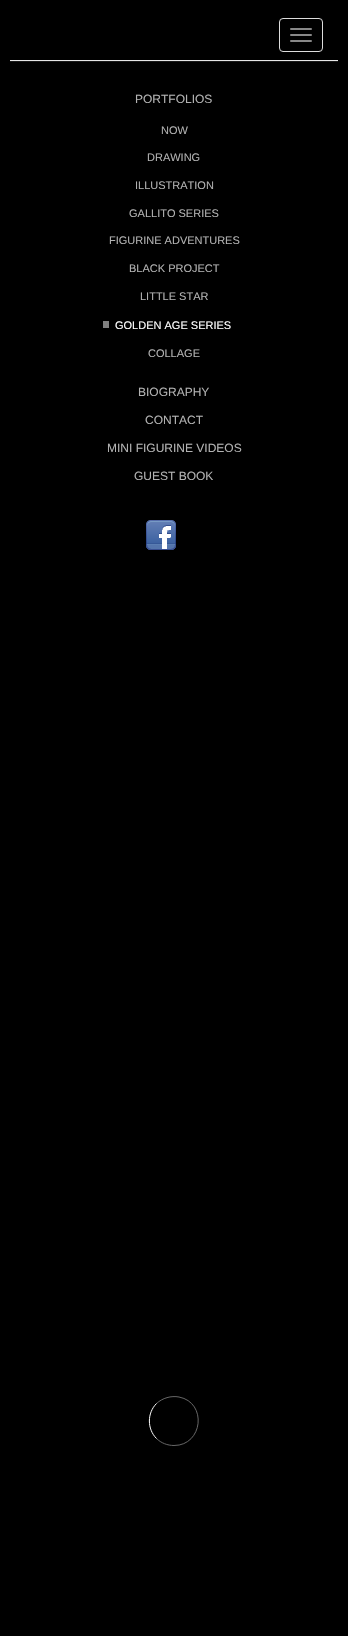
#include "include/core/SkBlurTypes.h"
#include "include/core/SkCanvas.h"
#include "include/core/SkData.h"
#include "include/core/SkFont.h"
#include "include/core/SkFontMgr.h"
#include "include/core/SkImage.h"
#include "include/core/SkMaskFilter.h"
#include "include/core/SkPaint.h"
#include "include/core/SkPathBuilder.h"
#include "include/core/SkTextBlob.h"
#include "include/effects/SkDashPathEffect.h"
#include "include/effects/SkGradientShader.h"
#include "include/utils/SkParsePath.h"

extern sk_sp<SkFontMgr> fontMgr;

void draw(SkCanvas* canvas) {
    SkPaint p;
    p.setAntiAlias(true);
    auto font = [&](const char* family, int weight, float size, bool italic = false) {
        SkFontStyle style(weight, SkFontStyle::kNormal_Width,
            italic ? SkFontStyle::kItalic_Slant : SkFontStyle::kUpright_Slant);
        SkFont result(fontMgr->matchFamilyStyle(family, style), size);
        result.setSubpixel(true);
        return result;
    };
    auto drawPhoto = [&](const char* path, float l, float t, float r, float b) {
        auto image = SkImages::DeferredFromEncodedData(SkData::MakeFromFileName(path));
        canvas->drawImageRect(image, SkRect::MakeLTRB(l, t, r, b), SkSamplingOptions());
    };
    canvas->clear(0xFF000000);
    p.setStyle(SkPaint::kStroke_Style);
    p.setStrokeWidth(1);
    p.setColor(0xFFDDDDDD);
    canvas->drawRoundRect(SkRect::MakeLTRB(279.5f, 18.5f, 322.5f, 51.5f), 3.5f, 3.5f, p);
    p.setStyle(SkPaint::kFill_Style);
    p.setColor(0xFF888888);
    canvas->drawRoundRect(SkRect::MakeLTRB(290, 28, 312, 30), 1, 1, p);
    canvas->drawRoundRect(SkRect::MakeLTRB(290, 34, 312, 36), 1, 1, p);
    canvas->drawRoundRect(SkRect::MakeLTRB(290, 40, 312, 42), 1, 1, p);
    p.setColor(0xFF1A1A1A);
    canvas->drawRect(SkRect::MakeLTRB(10, 61, 338, 62), p);
    p.setColor(0xFFE7E7E7);
    canvas->drawRect(SkRect::MakeLTRB(10, 60, 338, 61), p);
    auto font1 = font("Liberation Sans", 400, 12);
    p.setColor(0xFFB2B2B2);
    canvas->drawString("PORTFOLIOS", 135, 103, font1, p);
    auto font2 = font("Liberation Sans", 400, 11);
    {
        const struct { const char* s; float x, y; } items[] = {
            {"NOW", 161, 134},
            {"DRAWING", 147, 161},
            {"ILLUSTRATION", 135, 189},
            {"GALLITO SERIES", 129, 217},
            {"FIGURINE ADVENTURES", 109, 244},
            {"BLACK PROJECT", 129, 272},
            {"LITTLE STAR", 140, 300},
        };
        for (auto [s, x, y] : items) {
            canvas->drawString(s, x, y, font2, p);
        }
    }
    p.setColor(0xFF808080);
    canvas->drawRect(SkRect::MakeLTRB(103, 321, 109, 328), p);
    p.setColor(0xFFFFFFFF);
    canvas->drawString("GOLDEN AGE SERIES", 115, 329, font2, p);
    p.setColor(0xFFB2B2B2);
    canvas->drawString("COLLAGE", 148, 357, font2, p);
    {
        const struct { const char* s; float x, y; } items[] = {
            {"BIOGRAPHY", 138, 396},
            {"CONTACT", 145, 424},
            {"MINI FIGURINE VIDEOS", 107, 452},
            {"GUEST BOOK", 134, 480},
        };
        for (auto [s, x, y] : items) {
            canvas->drawString(s, x, y, font1, p);
        }
    }
    drawPhoto("media/1.png", 146, 520, 176, 550);
    p.setStyle(SkPaint::kStroke_Style);
    p.setColor(0xFF666666);
    canvas->drawPath(SkPathBuilder().moveTo(156.5f, 1403.5f).cubicTo(162.5f, 1398, 171, 1395.5f, 179, 1397).cubicTo(207.5f, 1402.5f, 203, 1445.5f, 174, 1445.5f).cubicTo(167.5f, 1445.5f, 161, 1443, 156.5f, 1438.5f).detach(), p);
    p.setColor(0xFFFFFFFF);
    canvas->drawPath(SkPathBuilder().moveTo(156.5f, 1438.5f).cubicTo(147, 1429, 147, 1413, 156.5f, 1403.5f).detach(), p);
}
